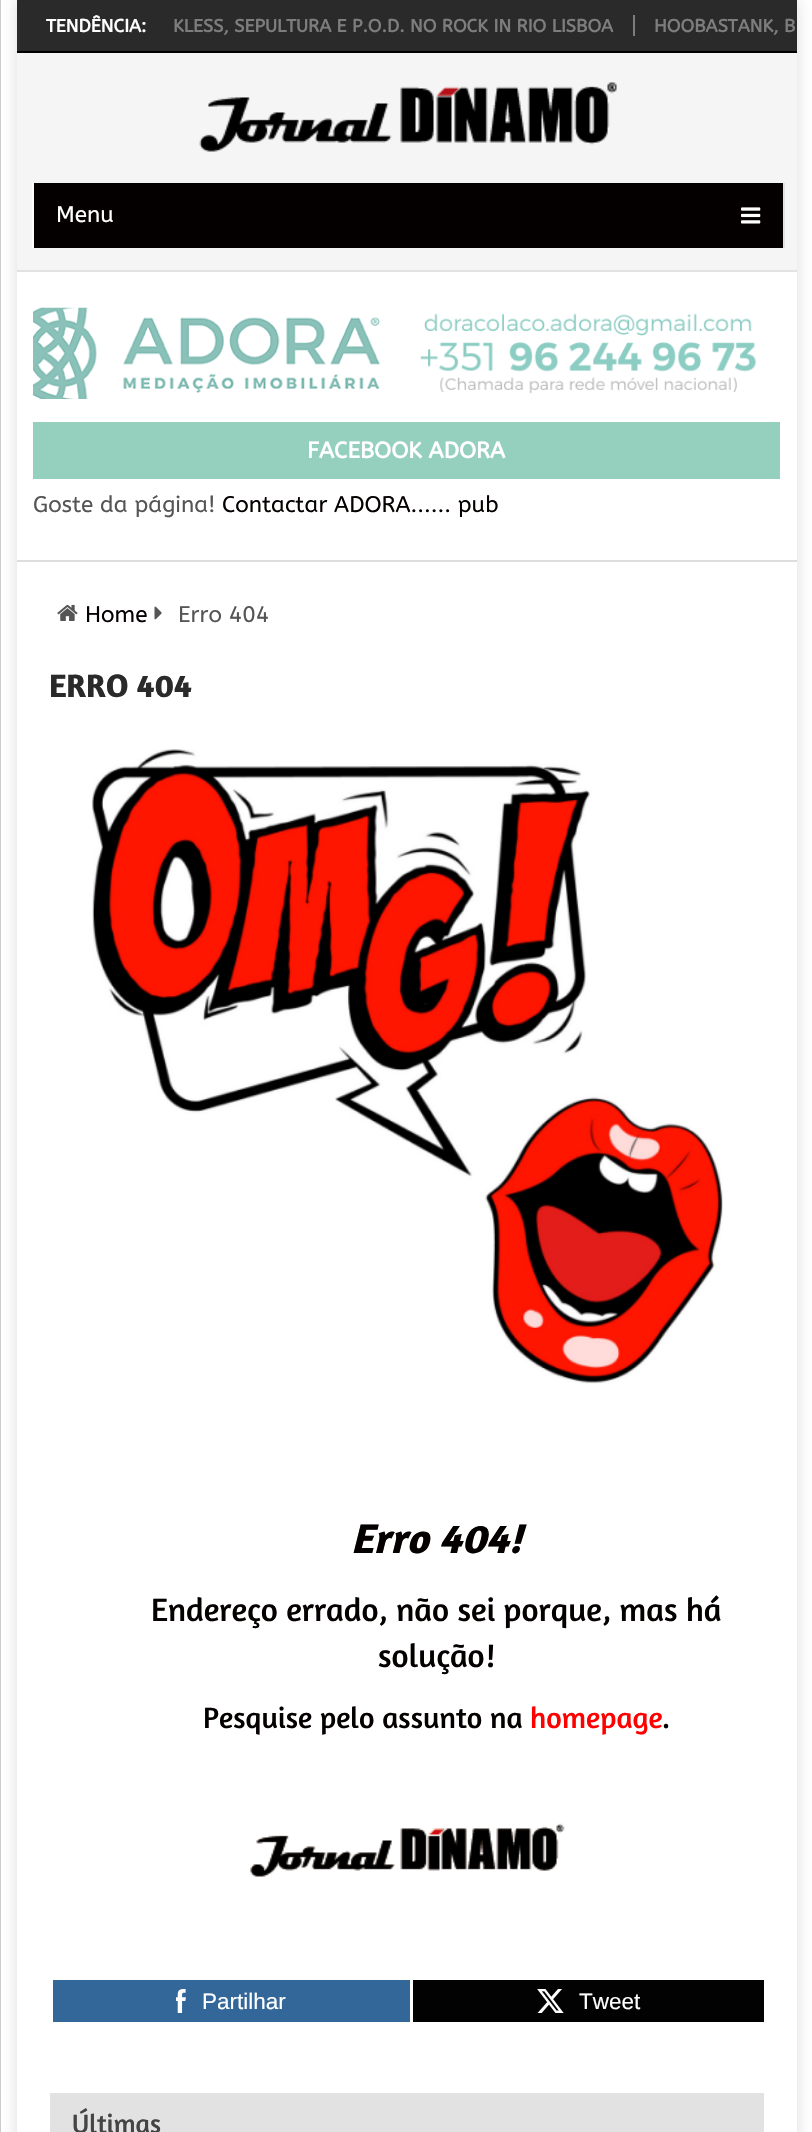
#include "include/core/SkBlurTypes.h"
#include "include/core/SkCanvas.h"
#include "include/core/SkData.h"
#include "include/core/SkFont.h"
#include "include/core/SkFontMgr.h"
#include "include/core/SkImage.h"
#include "include/core/SkMaskFilter.h"
#include "include/core/SkPaint.h"
#include "include/core/SkPathBuilder.h"
#include "include/core/SkTextBlob.h"
#include "include/effects/SkDashPathEffect.h"
#include "include/effects/SkGradientShader.h"
#include "include/utils/SkParsePath.h"

extern sk_sp<SkFontMgr> fontMgr;

void draw(SkCanvas* canvas) {
    SkPaint p;
    p.setAntiAlias(true);
    auto font = [&](const char* family, int weight, float size, bool italic = false) {
        SkFontStyle style(weight, SkFontStyle::kNormal_Width,
            italic ? SkFontStyle::kItalic_Slant : SkFontStyle::kUpright_Slant);
        SkFont result(fontMgr->matchFamilyStyle(family, style), size);
        result.setSubpixel(true);
        return result;
    };
    auto drawPhoto = [&](const char* path, float l, float t, float r, float b) {
        auto image = SkImages::DeferredFromEncodedData(SkData::MakeFromFileName(path));
        canvas->drawImageRect(image, SkRect::MakeLTRB(l, t, r, b), SkSamplingOptions());
    };
    canvas->clear(0xFFFFFFFF);
    p.setColor(0x2B323232);
    p.setMaskFilter(SkMaskFilter::MakeBlur(kNormal_SkBlurStyle, 7.5f));
    canvas->drawRect(SkRect::MakeLTRB(17, 0, 797, 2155), p);
    p.setMaskFilter(nullptr);
    {
        const struct { float l, t, r, b; SkColor color; } items[] = {
            {17, 272, 797, 2132, 0xFFFFFFFF},
            {17, 0, 797, 51, 0xFF2A2A2A},
            {17, 51, 797, 53, 0xFF000000},
        };
        for (auto [l, t, r, b, color] : items) {
            p.setColor(color);
            canvas->drawRect(SkRect::MakeLTRB(l, t, r, b), p);
        }
    }
    auto font1 = font("ABeeZee", 700, 18);
    p.setColor(0xFFFFFFFF);
    canvas->drawString("TENDÊNCIA:", 46, 32, font1, p);
    p.setColor(0xFF7D7D7D);
    canvas->drawRect(SkRect::MakeLTRB(633, 15, 635, 36), p);
    canvas->drawString("KLESS, SEPULTURA E P.O.D. NO ROCK IN RIO LISBOA", 173, 32, font1, p);
    canvas->drawString("HOOBASTANK, B", 654, 32, font1, p);
    p.setColor(0xFFF5F5F5);
    canvas->drawRect(SkRect::MakeLTRB(17, 53, 797, 270), p);
    p.setColor(0xFFE2E2E2);
    canvas->drawRect(SkRect::MakeLTRB(17, 270, 797, 272), p);
    drawPhoto("media/1.png", 199, 82, 617, 152);
    {
        const struct { float l, t, r, b; SkColor color; } items[] = {
            {0, 0, 1, 2132, 0xFFCCCCCC},
            {34, 183, 783, 248, 0xFF050000},
            {783, 183, 785, 248, 0xFFE2E2E2},
            {32, 183, 34, 248, 0xFFFFFFFF},
        };
        for (auto [l, t, r, b, color] : items) {
            p.setColor(color);
            canvas->drawRect(SkRect::MakeLTRB(l, t, r, b), p);
        }
    }
    auto font2 = font("ABeeZee", 400, 22.5f);
    canvas->drawString("Menu", 56, 222, font2, p);
    drawPhoto("media/2.png", 741, 207, 761, 224);
    p.setColor(0xFFDDDDDD);
    canvas->drawRect(SkRect::MakeLTRB(17, 560, 797, 562), p);
    drawPhoto("media/3.png", 33, 307, 757, 399);
    p.setColor(0xFF95D0BF);
    canvas->drawRect(SkRect::MakeLTRB(33, 422, 780, 479), p);
    auto font3 = font("ABeeZee", 700, 22.5f);
    p.setColor(0xFFFFFFFF);
    canvas->drawString("FACEBOOK ADORA", 307, 458, font3, p);
    p.setColor(0xFF555555);
    canvas->drawString("Goste da página!", 33, 512, font2, p);
    p.setColor(0xFF050000);
    canvas->drawString("Contactar ADORA...... pub", 222, 512, font2, p);
    drawPhoto("media/4.png", 57, 604, 78, 621);
    canvas->drawString("Home", 85, 622, font2, p);
    drawPhoto("media/5.png", 154, 606, 162, 620);
    p.setColor(0xFF555555);
    canvas->drawString("Erro 404", 178, 622, font2, p);
    auto font4 = font("Amaranth", 700, 33);
    p.setColor(0xFF2A2A2A);
    canvas->drawString("ERRO 404", 49, 697, font4, p);
    drawPhoto("media/6.png", 91, 749, 723, 1384);
    auto font5 = font("Amaranth", 700, 42, true);
    p.setColor(0xFF050000);
    canvas->drawString("Erro 404!", 351, 1553, font5, p);
    auto font6 = font("Amaranth", 400, 33);
    canvas->drawString("Endereço errado, não sei porque, mas há", 151, 1621, font6, p);
    canvas->drawString("solução!", 378, 1667, font6, p);
    auto font7 = font("Amaranth", 400, 30);
    canvas->drawString("Pesquise pelo assunto na", 203, 1728, font7, p);
    p.setColor(0xFFFF0000);
    canvas->drawString("homepage", 530, 1728, font7, p);
    p.setColor(0xFF050000);
    canvas->drawString(".", 662, 1728, font7, p);
    drawPhoto("media/7.png", 250, 1823, 565, 1877);
    p.setColor(0xFF336699);
    canvas->drawRect(SkRect::MakeLTRB(53, 1980, 410, 2022), p);
    drawPhoto("media/8.png", 176, 1989, 186, 2013);
    auto font8 = font("Liberation Sans", 400, 22.5f);
    p.setColor(0xFFFFFFFF);
    canvas->drawString("Partilhar", 202, 2009, font8, p);
    p.setColor(0xFF020202);
    canvas->drawRect(SkRect::MakeLTRB(413, 1980, 764, 2022), p);
    drawPhoto("media/9.png", 537, 1989, 564, 2013);
    p.setColor(0xFFFFFFFF);
    canvas->drawString("Tweet", 579, 2009, font8, p);
    p.setColor(0xFFE2E2E2);
    canvas->drawRect(SkRect::MakeLTRB(50, 2093, 764, 2132), p);
    auto font9 = font("Amaranth", 400, 27);
    p.setColor(0xFF444444);
    canvas->drawString("Últimas", 72, 2133, font9, p);
}
